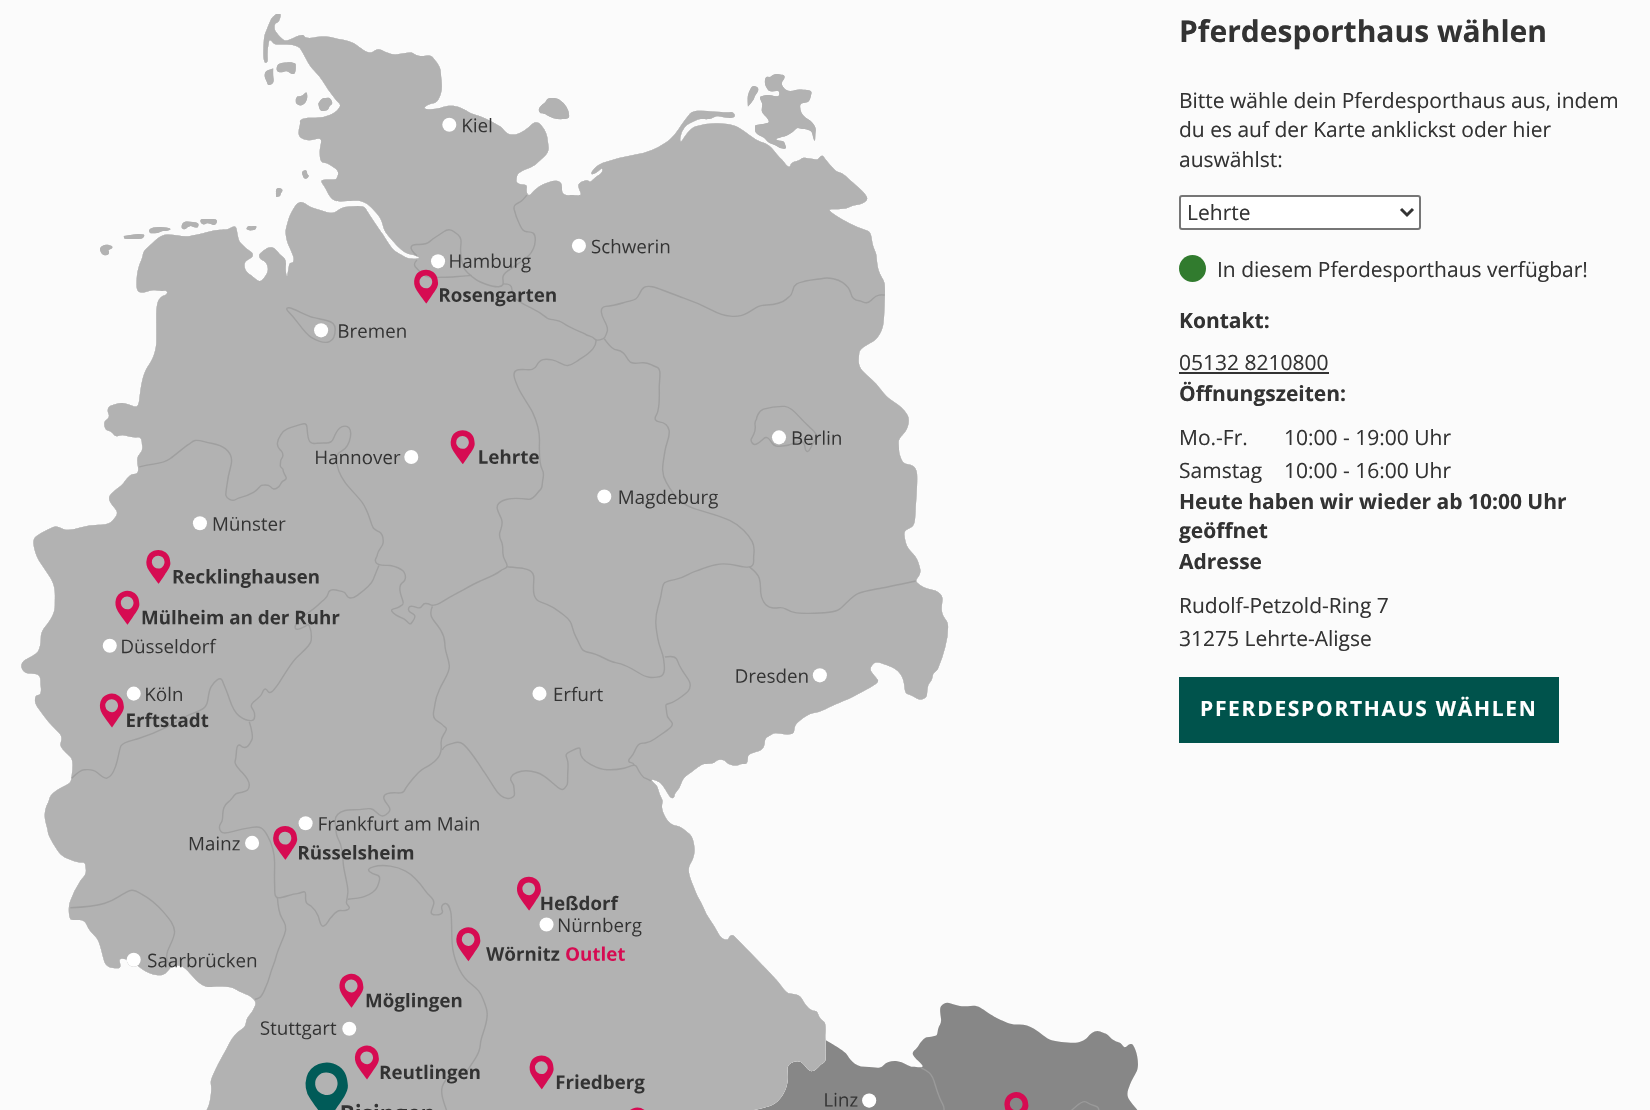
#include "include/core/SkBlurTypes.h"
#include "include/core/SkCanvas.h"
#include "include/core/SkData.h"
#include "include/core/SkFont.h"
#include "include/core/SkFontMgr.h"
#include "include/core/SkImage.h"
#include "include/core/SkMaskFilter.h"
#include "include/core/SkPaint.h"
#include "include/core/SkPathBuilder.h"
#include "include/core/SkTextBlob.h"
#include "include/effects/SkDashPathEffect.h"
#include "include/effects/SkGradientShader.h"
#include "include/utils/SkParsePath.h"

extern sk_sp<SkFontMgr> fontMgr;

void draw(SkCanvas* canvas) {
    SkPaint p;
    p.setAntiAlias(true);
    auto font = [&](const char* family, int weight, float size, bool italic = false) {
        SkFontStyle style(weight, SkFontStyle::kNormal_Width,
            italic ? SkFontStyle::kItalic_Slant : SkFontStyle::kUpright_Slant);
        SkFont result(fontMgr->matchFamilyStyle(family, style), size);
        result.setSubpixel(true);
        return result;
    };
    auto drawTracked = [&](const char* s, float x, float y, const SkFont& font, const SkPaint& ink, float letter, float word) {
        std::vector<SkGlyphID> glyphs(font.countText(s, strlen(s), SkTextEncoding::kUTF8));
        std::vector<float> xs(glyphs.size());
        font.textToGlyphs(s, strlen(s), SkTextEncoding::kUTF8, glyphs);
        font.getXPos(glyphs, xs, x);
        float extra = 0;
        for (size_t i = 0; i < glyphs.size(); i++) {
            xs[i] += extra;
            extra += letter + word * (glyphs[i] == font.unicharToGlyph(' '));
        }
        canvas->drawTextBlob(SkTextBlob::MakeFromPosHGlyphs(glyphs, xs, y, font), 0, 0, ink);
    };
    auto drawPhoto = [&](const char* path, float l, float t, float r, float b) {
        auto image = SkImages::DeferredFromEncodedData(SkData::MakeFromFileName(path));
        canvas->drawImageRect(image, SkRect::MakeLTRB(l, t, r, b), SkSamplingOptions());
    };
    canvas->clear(0xFFFBFBFB);
    drawPhoto("media/1.png", 21, 14, 1138, 1110);
    auto font1 = font("Open Sans", 700, 30);
    p.setColor(0xFF333333);
    canvas->drawString("Pferdesporthaus wählen", 1179, 42, font1, p);
    auto font2 = font("Open Sans", 400, 21);
    {
        const struct { const char* s; float x, y; } items[] = {
            {"Bitte wähle dein Pferdesporthaus aus, indem", 1179, 108},
            {"du es auf der Karte anklickst oder hier", 1179, 137},
            {"auswählst:", 1179, 167},
        };
        for (auto [s, x, y] : items) {
            canvas->drawString(s, x, y, font2, p);
        }
    }
    p.setColor(0xFFFFFFFF);
    canvas->drawRoundRect(SkRect::MakeLTRB(1180, 196, 1420, 229), 2, 2, p);
    p.setStyle(SkPaint::kStroke_Style);
    p.setStrokeWidth(2);
    p.setColor(0xFF767676);
    canvas->drawRoundRect(SkRect::MakeLTRB(1180, 196, 1420, 229), 2, 2, p);
    p.setStrokeWidth(3);
    p.setColor(0xFF333333);
    canvas->drawPath(SkPathBuilder().moveTo(1401, 209).lineTo(1407, 215).lineTo(1413, 209).detach(), p);
    p.setStyle(SkPaint::kFill_Style);
    canvas->drawString("Lehrte", 1187, 220, font2, p);
    p.setColor(0xFF317B2E);
    canvas->drawCircle(1192.5f, 268.5f, 13.5f, p);
    p.setColor(0xFF333333);
    canvas->drawString("In diesem Pferdesporthaus verfügbar!", 1217, 277, font2, p);
    auto font3 = font("Open Sans", 700, 21);
    canvas->drawString("Kontakt:", 1179, 328, font3, p);
    canvas->drawString("05132 8210800", 1179, 370, font2, p);
    canvas->drawRect(SkRect::MakeLTRB(1179, 372, 1329, 374), p);
    canvas->drawString("Öffnungszeiten:", 1179, 401, font3, p);
    {
        const struct { const char* s; float x, y; } items[] = {
            {"Mo.-Fr.", 1179, 445},
            {"10:00 - 19:00 Uhr", 1284, 445},
            {"Samstag", 1179, 478},
            {"10:00 - 16:00 Uhr", 1284, 478},
        };
        for (auto [s, x, y] : items) {
            canvas->drawString(s, x, y, font2, p);
        }
    }
    {
        const struct { const char* s; float x, y; } items[] = {
            {"Heute haben wir wieder ab 10:00 Uhr", 1179, 509},
            {"geöffnet", 1179, 538},
            {"Adresse", 1179, 569},
        };
        for (auto [s, x, y] : items) {
            canvas->drawString(s, x, y, font3, p);
        }
    }
    canvas->drawString("Rudolf-Petzold-Ring 7", 1179, 613, font2, p);
    canvas->drawString("31275 Lehrte-Aligse", 1179, 646, font2, p);
    p.setColor(0xFF00534C);
    canvas->drawRect(SkRect::MakeLTRB(1179, 677, 1559, 743), p);
    p.setColor(0xFFFFFFFF);
    drawTracked("PFERDESPORTHAUS WÄHLEN", 1200, 716, font3, p, 1.7f, 0);
}
